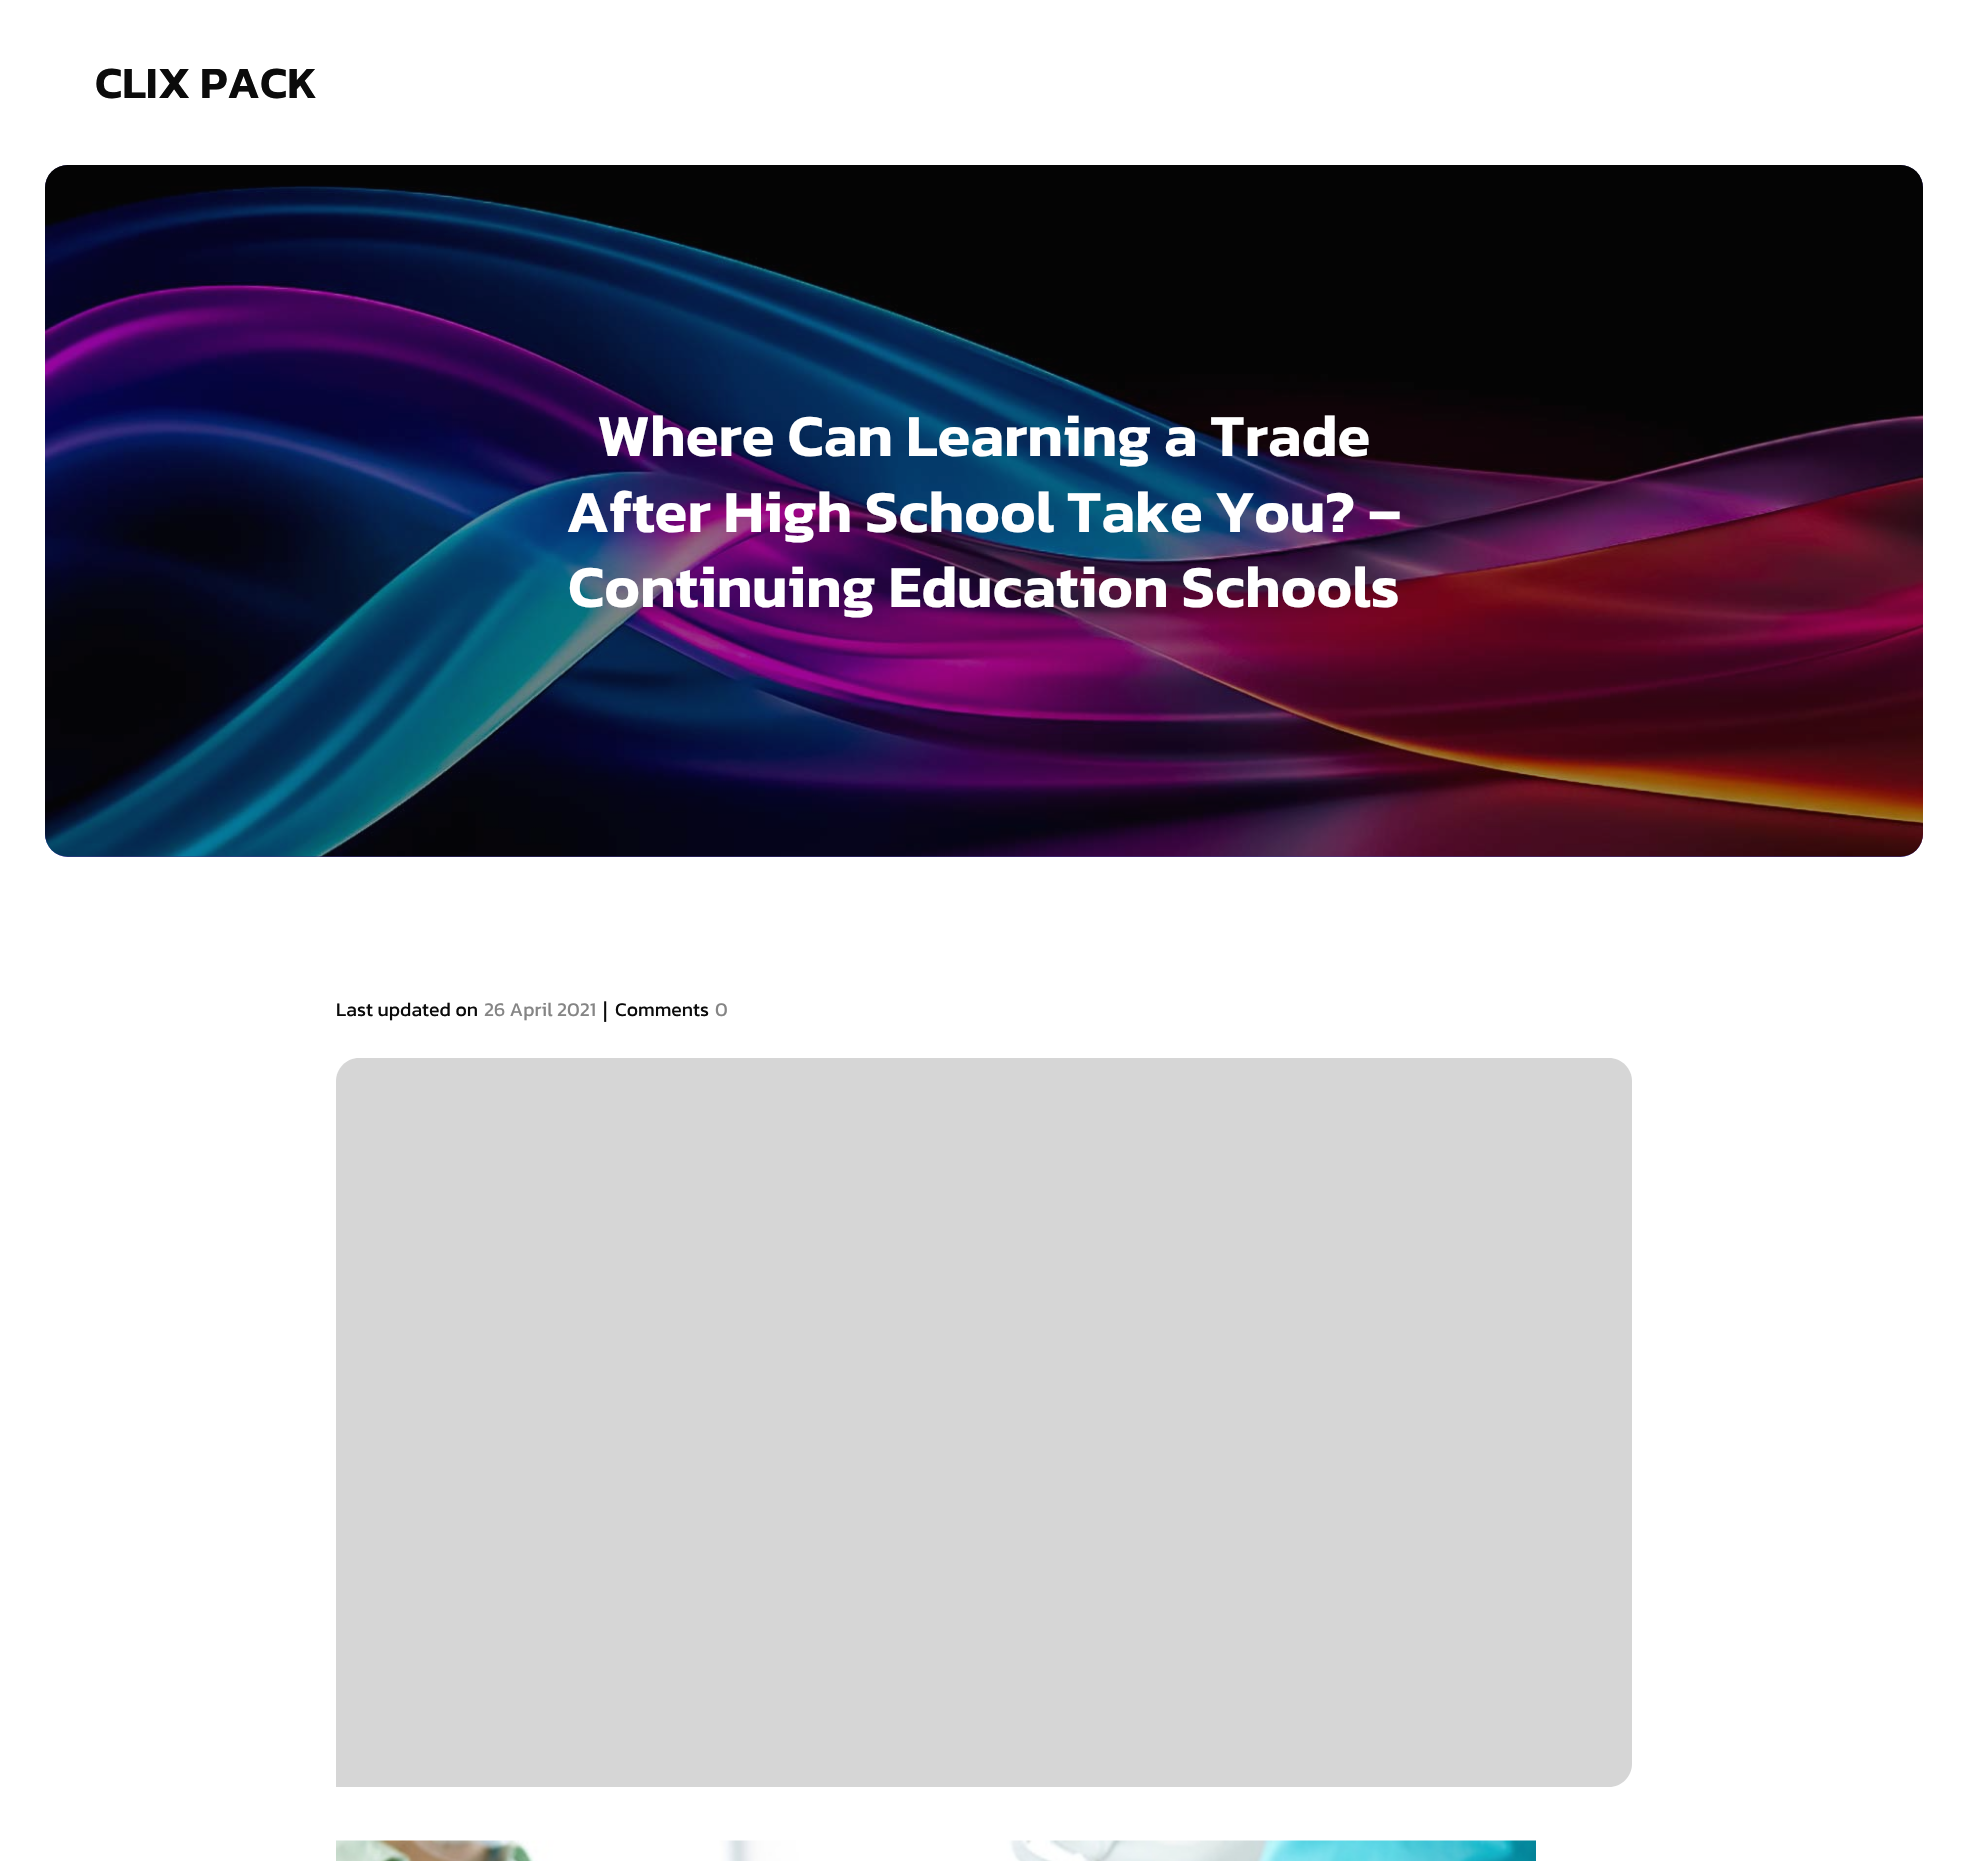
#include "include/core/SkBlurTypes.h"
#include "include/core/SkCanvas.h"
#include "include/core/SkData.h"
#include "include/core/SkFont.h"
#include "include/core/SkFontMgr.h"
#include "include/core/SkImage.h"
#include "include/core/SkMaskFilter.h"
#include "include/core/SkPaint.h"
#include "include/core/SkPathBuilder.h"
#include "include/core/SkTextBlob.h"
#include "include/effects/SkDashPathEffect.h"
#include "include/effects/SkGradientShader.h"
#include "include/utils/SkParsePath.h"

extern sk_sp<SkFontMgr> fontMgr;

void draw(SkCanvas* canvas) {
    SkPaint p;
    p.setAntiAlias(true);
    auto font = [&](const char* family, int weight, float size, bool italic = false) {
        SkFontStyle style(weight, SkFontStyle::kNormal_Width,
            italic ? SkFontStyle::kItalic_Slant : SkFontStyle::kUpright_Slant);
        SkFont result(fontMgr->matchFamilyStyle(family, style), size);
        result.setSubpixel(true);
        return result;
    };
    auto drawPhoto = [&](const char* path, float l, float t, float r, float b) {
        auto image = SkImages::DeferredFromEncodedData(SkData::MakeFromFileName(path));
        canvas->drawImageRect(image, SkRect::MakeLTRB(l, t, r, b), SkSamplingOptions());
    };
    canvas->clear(0xFFFFFFFF);
    auto font1 = font("Kanit", 600, 45);
    p.setColor(0xFF0B0B0B);
    canvas->drawString("CLIX PACK", 95, 98, font1, p);
    p.setColor(0xFF6753E9);
    canvas->drawRoundRect(SkRect::MakeLTRB(45, 165, 1923, 857), 23, 23, p);
    drawPhoto("media/1.png", 45, 165, 1923, 857);
    p.setColor(0x660B0B0B);
    canvas->drawRoundRect(SkRect::MakeLTRB(45, 165, 1923, 857), 23, 23, p);
    auto font2 = font("Kanit", 600, 60);
    p.setColor(0xFFFFFFFF);
    {
        const struct { const char* s; float x, y; } items[] = {
            {"Where Can Learning a Trade", 597, 456},
            {"After High School Take You? –", 566, 532},
            {"Continuing Education Schools", 568, 607},
        };
        for (auto [s, x, y] : items) {
            canvas->drawString(s, x, y, font2, p);
        }
    }
    auto font3 = font("Kanit", 400, 19.5f);
    p.setColor(0xFF0B0B0B);
    canvas->drawString("Last updated on", 336, 1016, font3, p);
    p.setColor(0xFF858585);
    canvas->drawString("26 April 2021", 484, 1016, font3, p);
    auto font4 = font("Kanit", 300, 24);
    p.setColor(0xFF0B0B0B);
    canvas->drawString("|", 603, 1019, font4, p);
    canvas->drawString("Comments", 615, 1016, font3, p);
    p.setColor(0xFF858585);
    canvas->drawString("0", 715, 1016, font3, p);
    p.setColor(0xFFD6D6D6);
    canvas->drawPath(SkPathBuilder().moveTo(359, 1058).lineTo(1609, 1058).cubicTo(1621.5f, 1058, 1632, 1068.5f, 1632, 1081).lineTo(1632, 1764).cubicTo(1632, 1776.5f, 1621.5f, 1787, 1609, 1787).lineTo(336, 1787).lineTo(336, 1081).cubicTo(336, 1068.5f, 346.5f, 1058, 359, 1058).close().detach(), p);
    drawPhoto("media/2.png", 336, 1840, 1536, 1861);
}
